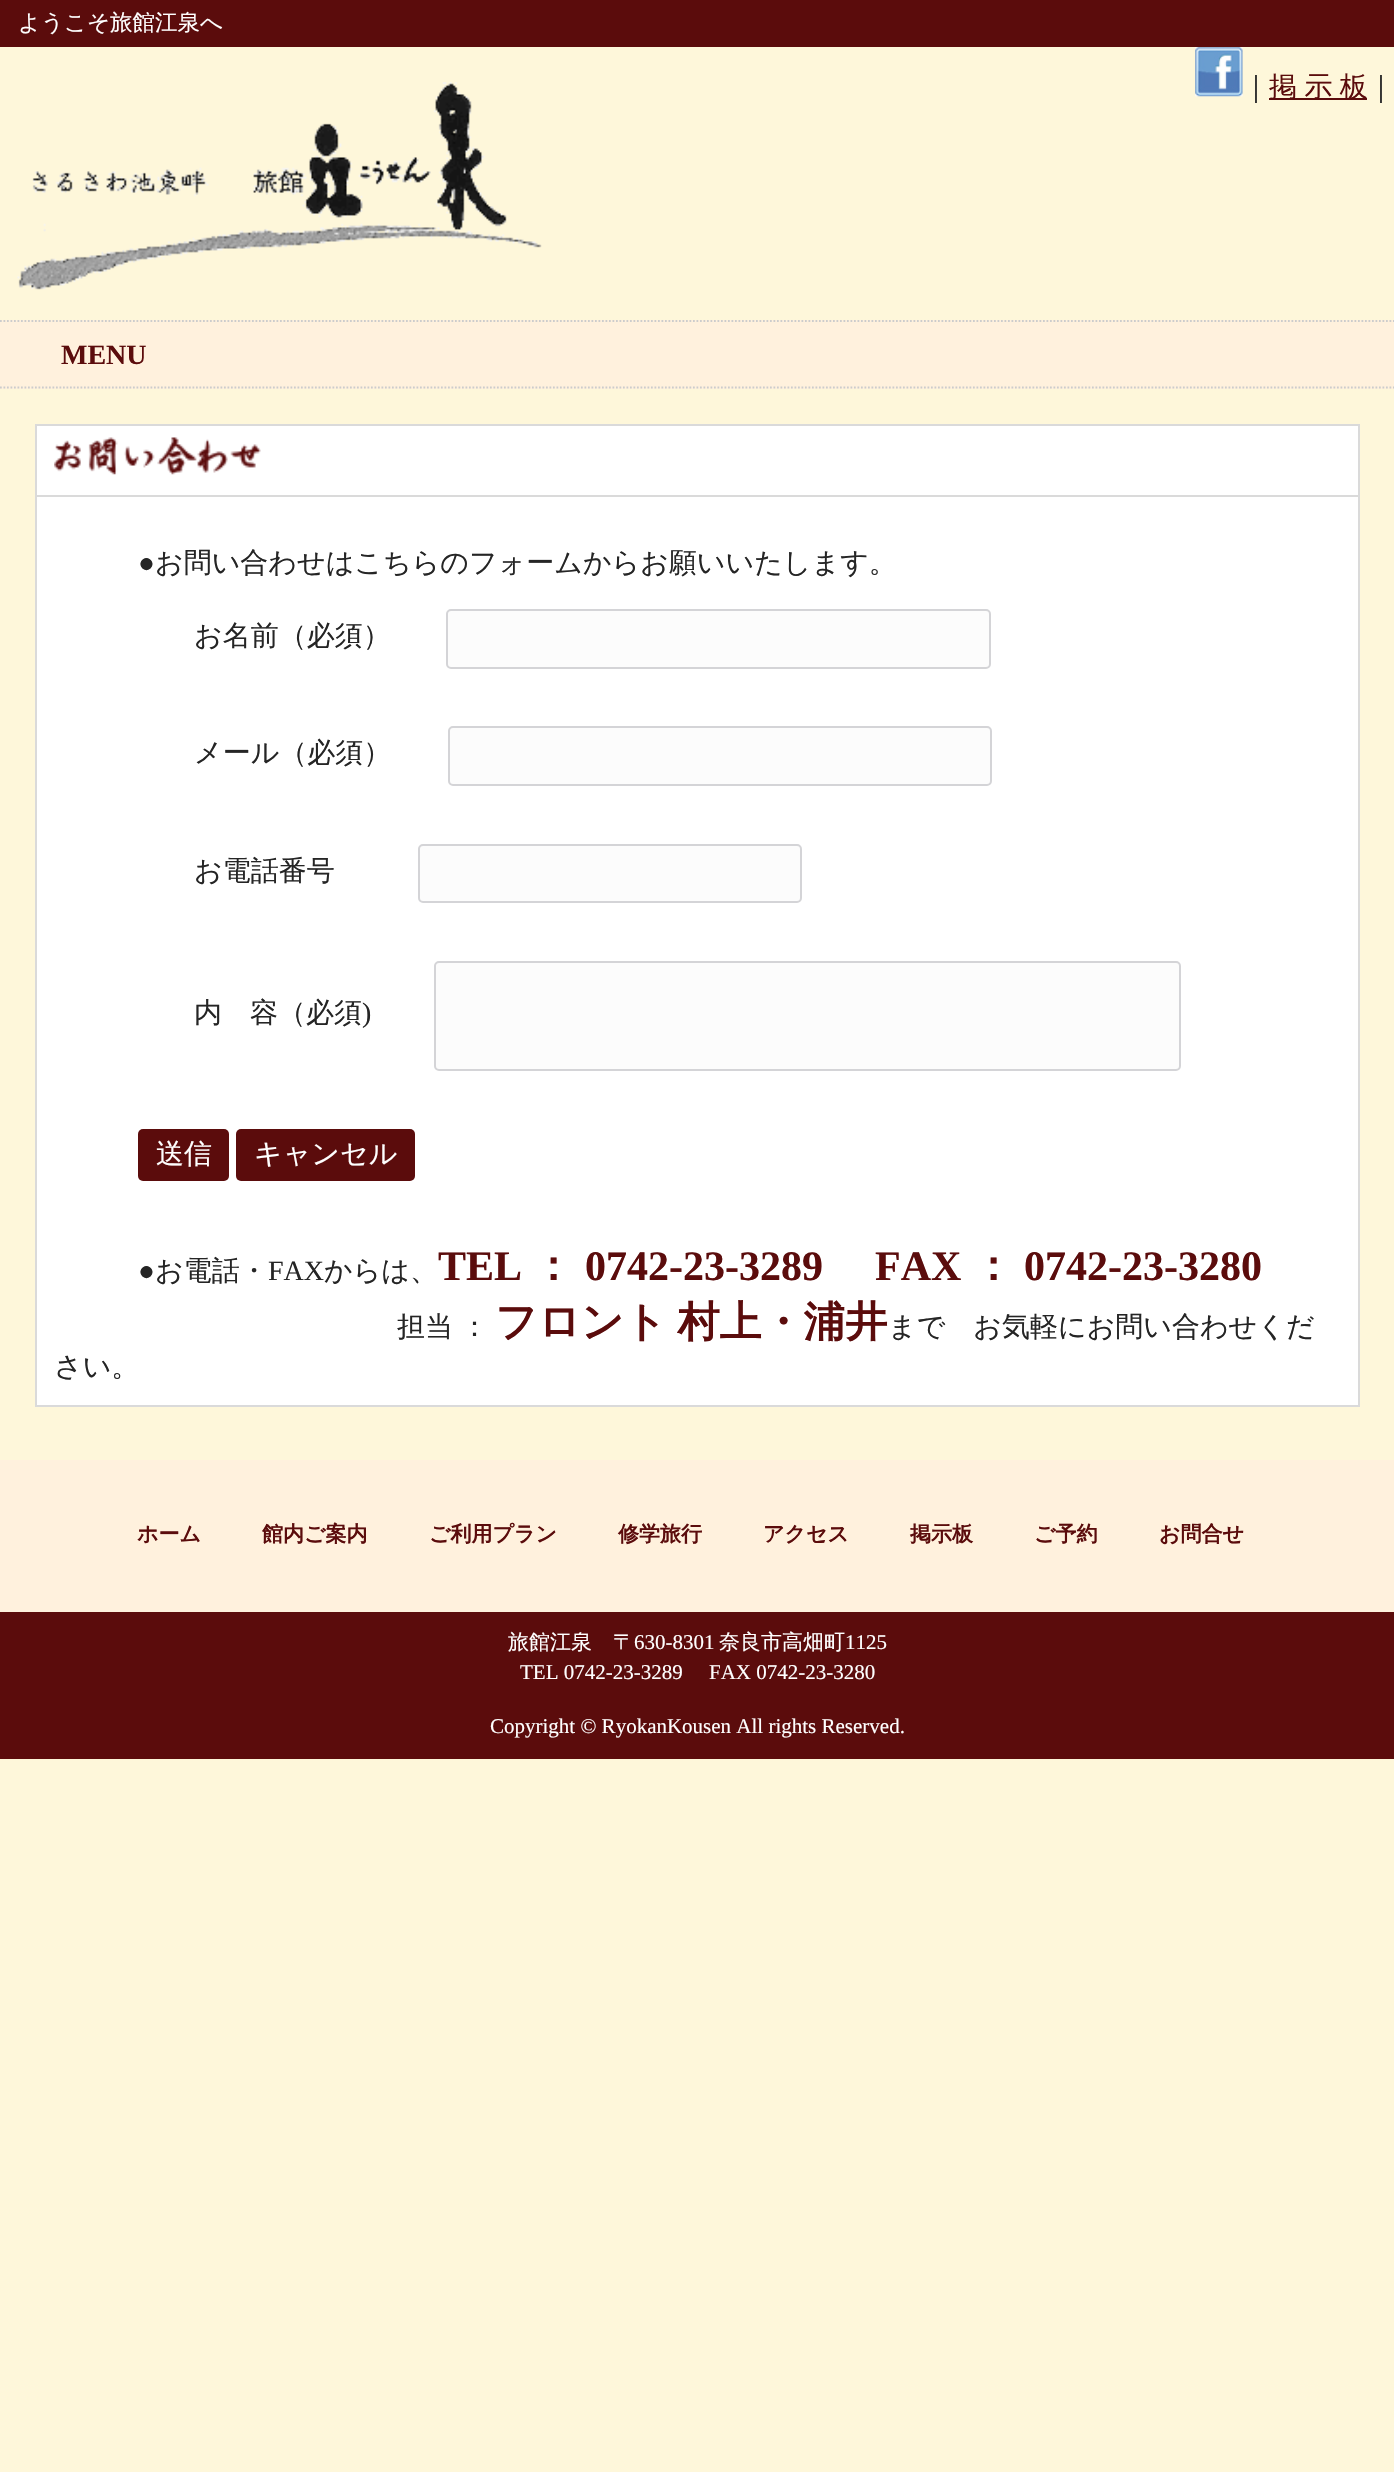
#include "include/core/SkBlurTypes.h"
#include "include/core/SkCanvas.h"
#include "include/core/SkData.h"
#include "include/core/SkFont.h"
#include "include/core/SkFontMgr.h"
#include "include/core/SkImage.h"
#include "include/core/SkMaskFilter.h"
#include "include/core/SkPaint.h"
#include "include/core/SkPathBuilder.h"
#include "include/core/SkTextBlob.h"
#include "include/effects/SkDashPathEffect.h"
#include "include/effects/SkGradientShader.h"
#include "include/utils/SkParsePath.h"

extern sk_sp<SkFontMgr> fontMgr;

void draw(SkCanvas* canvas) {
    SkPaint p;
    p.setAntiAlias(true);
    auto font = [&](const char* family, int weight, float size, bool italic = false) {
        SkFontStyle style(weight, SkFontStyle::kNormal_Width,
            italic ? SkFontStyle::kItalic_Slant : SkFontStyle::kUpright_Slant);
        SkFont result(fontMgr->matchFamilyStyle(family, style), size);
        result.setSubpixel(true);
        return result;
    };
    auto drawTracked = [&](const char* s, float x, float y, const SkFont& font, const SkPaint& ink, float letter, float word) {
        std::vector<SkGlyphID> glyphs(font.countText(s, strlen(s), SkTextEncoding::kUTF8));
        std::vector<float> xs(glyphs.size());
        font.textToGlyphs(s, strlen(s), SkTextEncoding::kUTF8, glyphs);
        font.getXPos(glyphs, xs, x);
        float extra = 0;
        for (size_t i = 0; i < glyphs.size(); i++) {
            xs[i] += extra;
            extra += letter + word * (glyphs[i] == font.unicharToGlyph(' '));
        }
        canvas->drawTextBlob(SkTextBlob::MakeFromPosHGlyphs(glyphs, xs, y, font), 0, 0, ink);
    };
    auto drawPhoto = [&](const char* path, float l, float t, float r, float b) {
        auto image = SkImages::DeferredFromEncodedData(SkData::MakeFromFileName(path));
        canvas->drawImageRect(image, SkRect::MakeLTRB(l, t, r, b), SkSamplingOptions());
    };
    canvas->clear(0xFFFEF7DA);
    p.setColor(0xFF5B0C0C);
    canvas->drawRect(SkRect::MakeLTRB(0, 0, 1394, 47), p);
    auto font1 = font("WenQuanYi Zen Hei", 500, 22.5f);
    p.setColor(0xFFFFFFFF);
    canvas->drawString("ようこそ旅館江泉へ", 18, 30, font1, p);
    drawPhoto("media/1.png", 17, 82, 542, 290);
    drawPhoto("media/2.png", 1195, 47, 1243, 97);
    auto font2 = font("WenQuanYi Zen Hei", 500, 28);
    p.setColor(0xFF252525);
    canvas->drawString("｜", 1242, 96, font2, p);
    p.setColor(0xFF5B0C0C);
    canvas->drawRect(SkRect::MakeLTRB(1269, 98, 1367, 100), p);
    drawTracked("掲 示 板", 1269, 96, font2, p, 0, -1);
    p.setColor(0xFF252525);
    canvas->drawString("｜", 1367, 96, font2, p);
    p.setColor(0xFFFFF1DD);
    canvas->drawRect(SkRect::MakeLTRB(0, 320, 1394, 389), p);
    p.setStyle(SkPaint::kStroke_Style);
    p.setStrokeWidth(1.8f);
    p.setColor(0xFFCCCCCC);
    p.setPathEffect(SkDashPathEffect::Make({{1.75f, 1.75f}}, 0));
    canvas->drawPath(SkPathBuilder().moveTo(0, 321).lineTo(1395, 321).detach(), p);
    p.setPathEffect(nullptr);
    p.setPathEffect(SkDashPathEffect::Make({{1.75f, 1.75f}}, 0));
    canvas->drawPath(SkPathBuilder().moveTo(0, 387.5f).lineTo(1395, 387.5f).detach(), p);
    p.setPathEffect(nullptr);
    auto font3 = font("Liberation Serif", 700, 28);
    p.setStyle(SkPaint::kFill_Style);
    p.setColor(0xFF5B0C0C);
    canvas->drawString("MENU", 61, 364, font3, p);
    {
        const struct { float l, t, r, b; SkColor color; } items[] = {
            {37, 426, 1358, 495, 0xFFFFFFFF},
            {35, 424, 1360, 426, 0xFFDADADA},
            {1358, 424, 1360, 495, 0xFFDADADA},
            {35, 424, 37, 495, 0xFFDADADA},
        };
        for (auto [l, t, r, b, color] : items) {
            p.setColor(color);
            canvas->drawRect(SkRect::MakeLTRB(l, t, r, b), p);
        }
    }
    drawPhoto("media/3.png", 54, 437, 261, 475);
    p.setColor(0xFFFFFFFF);
    canvas->drawRect(SkRect::MakeLTRB(36, 496, 1359, 1406), p);
    p.setStyle(SkPaint::kStroke_Style);
    p.setStrokeWidth(2);
    p.setColor(0xFFDADADA);
    canvas->drawRect(SkRect::MakeLTRB(36, 496, 1359, 1406), p);
    auto font4 = font("Liberation Serif", 400, 28);
    p.setStyle(SkPaint::kFill_Style);
    p.setColor(0xFF252525);
    canvas->drawString("●", 138, 572, font4, p);
    canvas->drawString("お問い合わせはこちらのフォームからお願いいたします。", 155, 572, font2, p);
    canvas->drawString("お名前（必須）", 194, 645, font2, p);
    p.setColor(0xFFFCFCFC);
    canvas->drawRoundRect(SkRect::MakeLTRB(447, 610, 990, 668), 4, 4, p);
    p.setStyle(SkPaint::kStroke_Style);
    p.setColor(0xFFD4D4D7);
    canvas->drawRoundRect(SkRect::MakeLTRB(447, 610, 990, 668), 4, 4, p);
    p.setStyle(SkPaint::kFill_Style);
    p.setColor(0xFF252525);
    canvas->drawString("メール（必須）", 194, 762, font2, p);
    p.setColor(0xFFFCFCFC);
    canvas->drawRoundRect(SkRect::MakeLTRB(449, 727, 991, 785), 4, 4, p);
    p.setStyle(SkPaint::kStroke_Style);
    p.setColor(0xFFD4D4D7);
    canvas->drawRoundRect(SkRect::MakeLTRB(449, 727, 991, 785), 4, 4, p);
    p.setStyle(SkPaint::kFill_Style);
    p.setColor(0xFF252525);
    canvas->drawString("お電話番号", 194, 880, font2, p);
    p.setColor(0xFFFCFCFC);
    canvas->drawRoundRect(SkRect::MakeLTRB(419, 845, 801, 902), 4, 4, p);
    p.setStyle(SkPaint::kStroke_Style);
    p.setColor(0xFFD4D4D7);
    canvas->drawRoundRect(SkRect::MakeLTRB(419, 845, 801, 902), 4, 4, p);
    p.setStyle(SkPaint::kFill_Style);
    p.setColor(0xFF252525);
    canvas->drawString("内　容（必須", 194, 1022, font2, p);
    canvas->drawString(")", 362, 1022, font4, p);
    p.setColor(0xFFFCFCFC);
    canvas->drawRoundRect(SkRect::MakeLTRB(435, 962, 1180, 1070), 4, 4, p);
    p.setStyle(SkPaint::kStroke_Style);
    p.setColor(0xFFD4D4D7);
    canvas->drawRoundRect(SkRect::MakeLTRB(435, 962, 1180, 1070), 4, 4, p);
    p.setStyle(SkPaint::kFill_Style);
    p.setColor(0xFF5B0C0C);
    canvas->drawRoundRect(SkRect::MakeLTRB(138, 1129, 229, 1181), 5, 5, p);
    p.setColor(0xFFFFFFFF);
    canvas->drawString("送信", 156, 1163, font2, p);
    p.setColor(0xFF5B0C0C);
    canvas->drawRoundRect(SkRect::MakeLTRB(236, 1129, 415, 1181), 5, 5, p);
    p.setColor(0xFFFFFFFF);
    canvas->drawString("キャンセル", 254, 1163, font2, p);
    p.setColor(0xFF252525);
    canvas->drawString("●", 138, 1280, font4, p);
    canvas->drawString("お電話・", 155, 1280, font2, p);
    canvas->drawString("FAX", 268, 1280, font4, p);
    canvas->drawString("からは、", 324, 1280, font2, p);
    auto font5 = font("Liberation Serif", 700, 42);
    p.setColor(0xFF5B0C0C);
    canvas->drawString("TEL", 438, 1280, font5, p);
    auto font6 = font("WenQuanYi Zen Hei", 700, 42);
    canvas->drawString("：", 532, 1280, font6, p);
    canvas->drawString("0742-23-3289", 585, 1280, font5, p);
    canvas->drawString("FAX", 875, 1280, font5, p);
    canvas->drawString("：", 972, 1280, font6, p);
    canvas->drawString("0742-23-3280", 1024, 1280, font5, p);
    p.setColor(0xFF252525);
    drawTracked("担当 ：", 397, 1336, font2, p, 0, -1);
    p.setColor(0xFF5B0C0C);
    drawTracked("フロント 村上・浦井", 495, 1336, font6, p, 0, -2);
    p.setColor(0xFF252525);
    canvas->drawString("まで　お気軽にお問い合わせくだ", 888, 1336, font2, p);
    canvas->drawString("さい。", 54, 1376, font2, p);
    p.setColor(0xFFFFF1DD);
    canvas->drawRect(SkRect::MakeLTRB(0, 1460, 1394, 1612), p);
    auto font7 = font("WenQuanYi Zen Hei", 700, 21);
    p.setColor(0xFF5B0C0C);
    {
        const struct { const char* s; float x, y; } items[] = {
            {"ホーム", 137, 1541},
            {"館内ご案内", 262, 1541},
            {"ご利用プラン", 429, 1541},
            {"修学旅行", 618, 1541},
            {"アクセス", 763, 1541},
            {"掲示板", 910, 1541},
            {"ご予約", 1034, 1541},
            {"お問合せ", 1159, 1541},
        };
        for (auto [s, x, y] : items) {
            canvas->drawString(s, x, y, font7, p);
        }
    }
    canvas->drawRect(SkRect::MakeLTRB(0, 1612, 1394, 1759), p);
    auto font8 = font("WenQuanYi Zen Hei", 500, 21);
    p.setColor(0xFFFFFFFF);
    canvas->drawString("旅館江泉　〒", 508, 1649, font8, p);
    auto font9 = font("Liberation Serif", 400, 21);
    canvas->drawString("630-8301", 634, 1649, font9, p);
    canvas->drawString("奈良市高畑町", 719, 1649, font8, p);
    {
        const struct { const char* s; float x, y; } items[] = {
            {"1125", 845, 1649},
            {"TEL 0742-23-3289", 520, 1679},
            {"FAX 0742-23-3280", 709, 1679},
            {"Copyright © RyokanKousen All rights Reserved.", 490, 1733},
        };
        for (auto [s, x, y] : items) {
            canvas->drawString(s, x, y, font9, p);
        }
    }
}
